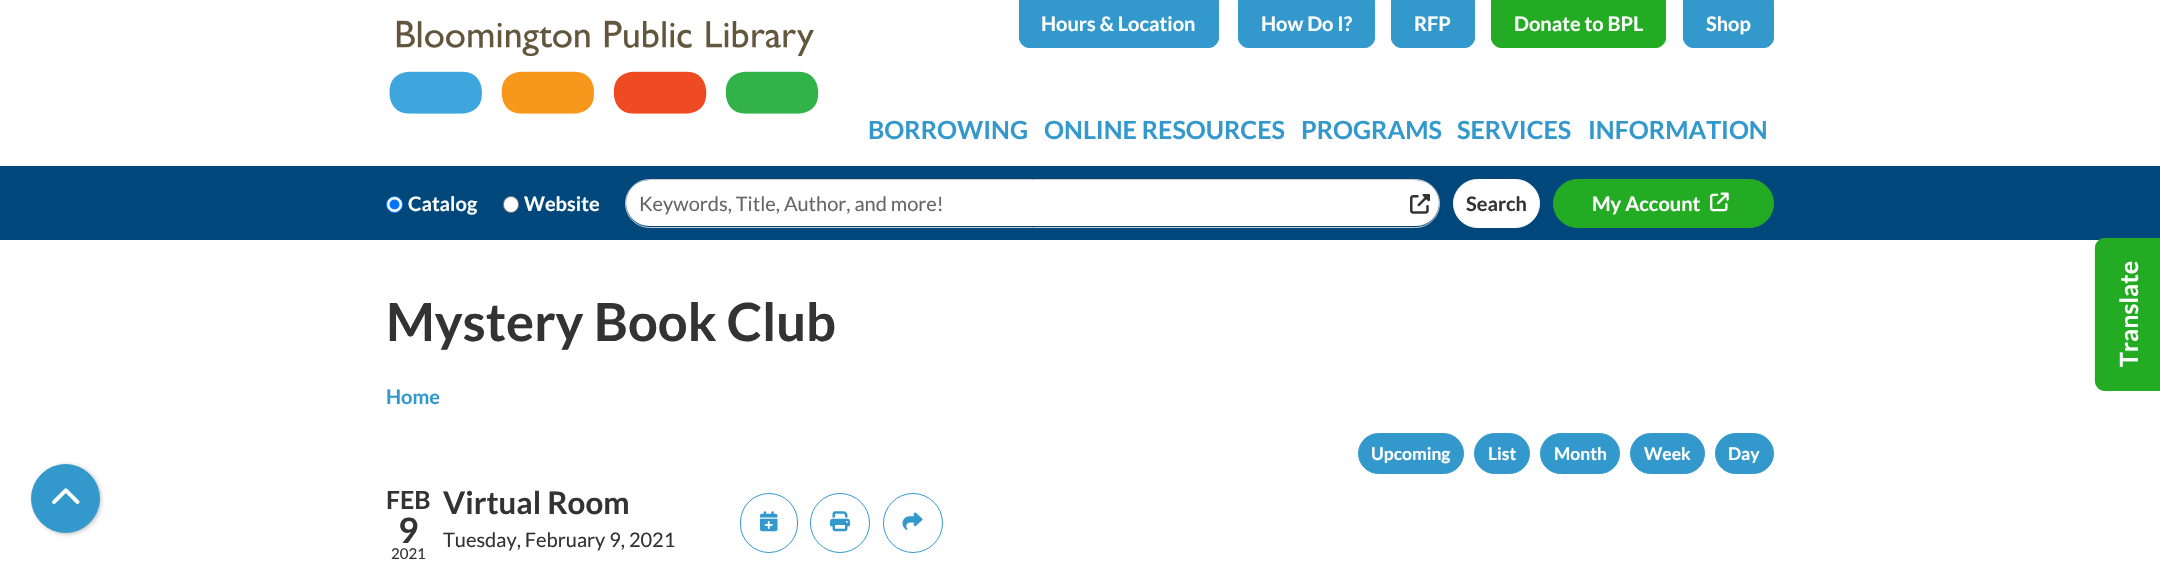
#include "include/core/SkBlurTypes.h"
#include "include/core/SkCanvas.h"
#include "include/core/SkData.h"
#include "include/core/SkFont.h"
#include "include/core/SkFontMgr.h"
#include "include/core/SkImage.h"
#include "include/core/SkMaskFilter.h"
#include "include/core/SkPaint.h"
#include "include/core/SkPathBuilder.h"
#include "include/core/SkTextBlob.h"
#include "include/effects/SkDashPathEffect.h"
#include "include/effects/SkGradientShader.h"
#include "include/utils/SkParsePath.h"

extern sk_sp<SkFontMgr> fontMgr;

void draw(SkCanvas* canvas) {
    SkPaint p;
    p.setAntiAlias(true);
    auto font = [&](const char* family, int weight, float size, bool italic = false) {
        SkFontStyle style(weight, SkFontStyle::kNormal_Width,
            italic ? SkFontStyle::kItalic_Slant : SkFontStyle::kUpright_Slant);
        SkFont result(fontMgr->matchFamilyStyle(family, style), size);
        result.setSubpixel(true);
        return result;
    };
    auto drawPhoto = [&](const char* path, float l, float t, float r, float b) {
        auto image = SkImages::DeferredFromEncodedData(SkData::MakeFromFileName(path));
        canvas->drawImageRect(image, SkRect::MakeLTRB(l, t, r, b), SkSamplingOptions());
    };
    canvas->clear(0xFFFFFFFF);
    drawPhoto("media/1.png", 389, 20, 819, 114);
    p.setColor(0xFF3399CC);
    canvas->drawPath(SkPathBuilder().moveTo(1019.5f, 0.5f).lineTo(1218.5f, 0.5f).lineTo(1218.5f, 38).cubicTo(1218.5f, 43, 1214, 47.5f, 1209, 47.5f).lineTo(1029, 47.5f).cubicTo(1024, 47.5f, 1019.5f, 43, 1019.5f, 38).close().detach(), p);
    p.setStyle(SkPaint::kStroke_Style);
    p.setStrokeWidth(1);
    canvas->drawPath(SkPathBuilder().moveTo(1019.5f, 0.5f).lineTo(1218.5f, 0.5f).lineTo(1218.5f, 38).cubicTo(1218.5f, 43, 1214, 47.5f, 1209, 47.5f).lineTo(1029, 47.5f).cubicTo(1024, 47.5f, 1019.5f, 43, 1019.5f, 38).close().detach(), p);
    auto font1 = font("Lato", 700, 20);
    p.setStyle(SkPaint::kFill_Style);
    p.setColor(0xFFFFFFFF);
    canvas->drawString("Hours & Location", 1041, 31, font1, p);
    p.setColor(0xFF3399CC);
    canvas->drawPath(SkPathBuilder().moveTo(1238.5f, 0.5f).lineTo(1374.5f, 0.5f).lineTo(1374.5f, 38).cubicTo(1374.5f, 43, 1370, 47.5f, 1365, 47.5f).lineTo(1248, 47.5f).cubicTo(1243, 47.5f, 1238.5f, 43, 1238.5f, 38).close().detach(), p);
    p.setStyle(SkPaint::kStroke_Style);
    canvas->drawPath(SkPathBuilder().moveTo(1238.5f, 0.5f).lineTo(1374.5f, 0.5f).lineTo(1374.5f, 38).cubicTo(1374.5f, 43, 1370, 47.5f, 1365, 47.5f).lineTo(1248, 47.5f).cubicTo(1243, 47.5f, 1238.5f, 43, 1238.5f, 38).close().detach(), p);
    p.setStyle(SkPaint::kFill_Style);
    p.setColor(0xFFFFFFFF);
    canvas->drawString("How Do I?", 1261, 31, font1, p);
    p.setColor(0xFF3399CC);
    canvas->drawPath(SkPathBuilder().moveTo(1391.5f, 0.5f).lineTo(1474.5f, 0.5f).lineTo(1474.5f, 38).cubicTo(1474.5f, 43, 1470, 47.5f, 1465, 47.5f).lineTo(1401, 47.5f).cubicTo(1396, 47.5f, 1391.5f, 43, 1391.5f, 38).close().detach(), p);
    p.setStyle(SkPaint::kStroke_Style);
    canvas->drawPath(SkPathBuilder().moveTo(1391.5f, 0.5f).lineTo(1474.5f, 0.5f).lineTo(1474.5f, 38).cubicTo(1474.5f, 43, 1470, 47.5f, 1465, 47.5f).lineTo(1401, 47.5f).cubicTo(1396, 47.5f, 1391.5f, 43, 1391.5f, 38).close().detach(), p);
    p.setStyle(SkPaint::kFill_Style);
    p.setColor(0xFFFFFFFF);
    canvas->drawString("RFP", 1414, 31, font1, p);
    p.setColor(0xFF23AC23);
    canvas->drawPath(SkPathBuilder().moveTo(1491.5f, 0.5f).lineTo(1665.5f, 0.5f).lineTo(1665.5f, 38).cubicTo(1665.5f, 43, 1661, 47.5f, 1656, 47.5f).lineTo(1501, 47.5f).cubicTo(1496, 47.5f, 1491.5f, 43, 1491.5f, 38).close().detach(), p);
    p.setStyle(SkPaint::kStroke_Style);
    canvas->drawPath(SkPathBuilder().moveTo(1491.5f, 0.5f).lineTo(1665.5f, 0.5f).lineTo(1665.5f, 38).cubicTo(1665.5f, 43, 1661, 47.5f, 1656, 47.5f).lineTo(1501, 47.5f).cubicTo(1496, 47.5f, 1491.5f, 43, 1491.5f, 38).close().detach(), p);
    p.setStyle(SkPaint::kFill_Style);
    p.setColor(0xFFFFFFFF);
    canvas->drawString("Donate to BPL", 1514, 31, font1, p);
    p.setColor(0xFF3399CC);
    canvas->drawPath(SkPathBuilder().moveTo(1683.5f, 0.5f).lineTo(1773.5f, 0.5f).lineTo(1773.5f, 38).cubicTo(1773.5f, 43, 1769, 47.5f, 1764, 47.5f).lineTo(1693, 47.5f).cubicTo(1688, 47.5f, 1683.5f, 43, 1683.5f, 38).close().detach(), p);
    p.setStyle(SkPaint::kStroke_Style);
    canvas->drawPath(SkPathBuilder().moveTo(1683.5f, 0.5f).lineTo(1773.5f, 0.5f).lineTo(1773.5f, 38).cubicTo(1773.5f, 43, 1769, 47.5f, 1764, 47.5f).lineTo(1693, 47.5f).cubicTo(1688, 47.5f, 1683.5f, 43, 1683.5f, 38).close().detach(), p);
    p.setStyle(SkPaint::kFill_Style);
    p.setColor(0xFFFFFFFF);
    canvas->drawString("Shop", 1706, 31, font1, p);
    auto font2 = font("Lato", 700, 25);
    p.setColor(0xFF3399CC);
    {
        const struct { const char* s; float x, y; } items[] = {
            {"BORROWING", 868, 139},
            {"ONLINE RESOURCES", 1044, 139},
            {"PROGRAMS", 1301, 139},
            {"SERVICES", 1457, 139},
            {"INFORMATION", 1588, 139},
        };
        for (auto [s, x, y] : items) {
            canvas->drawString(s, x, y, font2, p);
        }
    }
    p.setColor(0xFF00487C);
    canvas->drawRect(SkRect::MakeLTRB(0, 166, 2160, 240), p);
    p.setColor(0xFFFFFFFF);
    canvas->drawCircle(394.5f, 204.5f, 8, p);
    p.setStyle(SkPaint::kStroke_Style);
    p.setColor(0xFF0075FF);
    canvas->drawCircle(394.5f, 204.5f, 8, p);
    p.setStyle(SkPaint::kFill_Style);
    canvas->drawCircle(394.5f, 204.5f, 5, p);
    p.setColor(0xFFFFFFFF);
    canvas->drawString("Catalog", 408, 211, font1, p);
    canvas->drawRoundRect(SkRect::MakeLTRB(503.5f, 196.5f, 518.5f, 212.5f), 7.5f, 7.5f, p);
    p.setStyle(SkPaint::kStroke_Style);
    p.setColor(0xFF767676);
    canvas->drawRoundRect(SkRect::MakeLTRB(503.5f, 196.5f, 518.5f, 212.5f), 7.5f, 7.5f, p);
    p.setStyle(SkPaint::kFill_Style);
    p.setColor(0xFFFFFFFF);
    canvas->drawString("Website", 524, 211, font1, p);
    canvas->drawRoundRect(SkRect::MakeLTRB(626, 180, 1439, 226), 23, 23, p);
    p.setStyle(SkPaint::kStroke_Style);
    p.setColor(0xFFCCCCCC);
    canvas->drawRoundRect(SkRect::MakeLTRB(625.5f, 179.5f, 1439.5f, 227.5f), 24, 24, p);
    auto font3 = font("Lato", 400, 20);
    p.setStyle(SkPaint::kFill_Style);
    p.setColor(0xFF666666);
    canvas->drawString("Keywords, Title, Author, and more!", 639, 211, font3, p);
    drawPhoto("media/2.png", 1410, 194, 1430, 214);
    p.setColor(0xFFFFFFFF);
    canvas->drawRoundRect(SkRect::MakeLTRB(1453.5f, 179.5f, 1539.5f, 227.5f), 24, 24, p);
    p.setStyle(SkPaint::kStroke_Style);
    canvas->drawRoundRect(SkRect::MakeLTRB(1453.5f, 179.5f, 1539.5f, 227.5f), 24, 24, p);
    p.setStyle(SkPaint::kFill_Style);
    p.setColor(0xFF333333);
    canvas->drawString("Search", 1466, 211, font1, p);
    p.setColor(0xFF23AC23);
    canvas->drawRoundRect(SkRect::MakeLTRB(1553.5f, 179.5f, 1773.5f, 227.5f), 24, 24, p);
    p.setStyle(SkPaint::kStroke_Style);
    canvas->drawRoundRect(SkRect::MakeLTRB(1553.5f, 179.5f, 1773.5f, 227.5f), 24, 24, p);
    p.setStyle(SkPaint::kFill_Style);
    p.setColor(0xFFFFFFFF);
    canvas->drawString("My Account", 1592, 211, font1, p);
    drawPhoto("media/3.png", 1710, 192, 1729, 212);
    auto font4 = font("Lato", 700, 52.5f);
    p.setColor(0xFF333333);
    canvas->drawString("Mystery Book Club", 386, 341, font4, p);
    p.setColor(0xFF3399CC);
    canvas->drawString("Home", 386, 404, font1, p);
    canvas->drawRoundRect(SkRect::MakeLTRB(1358.5f, 433.5f, 1463.5f, 473.5f), 20, 20, p);
    p.setStyle(SkPaint::kStroke_Style);
    canvas->drawRoundRect(SkRect::MakeLTRB(1358.5f, 433.5f, 1463.5f, 473.5f), 20, 20, p);
    auto font5 = font("Lato", 700, 17.5f);
    p.setStyle(SkPaint::kFill_Style);
    p.setColor(0xFFFFFFFF);
    canvas->drawString("Upcoming", 1371, 460, font5, p);
    p.setColor(0xFF3399CC);
    canvas->drawRoundRect(SkRect::MakeLTRB(1474.5f, 433.5f, 1529.5f, 473.5f), 20, 20, p);
    p.setStyle(SkPaint::kStroke_Style);
    canvas->drawRoundRect(SkRect::MakeLTRB(1474.5f, 433.5f, 1529.5f, 473.5f), 20, 20, p);
    p.setStyle(SkPaint::kFill_Style);
    p.setColor(0xFFFFFFFF);
    canvas->drawString("List", 1488, 460, font5, p);
    p.setColor(0xFF3399CC);
    canvas->drawRoundRect(SkRect::MakeLTRB(1540.5f, 433.5f, 1619.5f, 473.5f), 20, 20, p);
    p.setStyle(SkPaint::kStroke_Style);
    canvas->drawRoundRect(SkRect::MakeLTRB(1540.5f, 433.5f, 1619.5f, 473.5f), 20, 20, p);
    p.setStyle(SkPaint::kFill_Style);
    p.setColor(0xFFFFFFFF);
    canvas->drawString("Month", 1554, 460, font5, p);
    p.setColor(0xFF3399CC);
    canvas->drawRoundRect(SkRect::MakeLTRB(1630.5f, 433.5f, 1704.5f, 473.5f), 20, 20, p);
    p.setStyle(SkPaint::kStroke_Style);
    canvas->drawRoundRect(SkRect::MakeLTRB(1630.5f, 433.5f, 1704.5f, 473.5f), 20, 20, p);
    p.setStyle(SkPaint::kFill_Style);
    p.setColor(0xFFFFFFFF);
    canvas->drawString("Week", 1644, 460, font5, p);
    p.setColor(0xFF3399CC);
    canvas->drawRoundRect(SkRect::MakeLTRB(1715.5f, 433.5f, 1773.5f, 473.5f), 20, 20, p);
    p.setStyle(SkPaint::kStroke_Style);
    canvas->drawRoundRect(SkRect::MakeLTRB(1715.5f, 433.5f, 1773.5f, 473.5f), 20, 20, p);
    p.setStyle(SkPaint::kFill_Style);
    p.setColor(0xFFFFFFFF);
    canvas->drawString("Day", 1728, 460, font5, p);
    p.setColor(0xFF333333);
    canvas->drawString("FEB", 386, 509, font2, p);
    auto font6 = font("Lato", 700, 35);
    canvas->drawString("9", 398, 543, font6, p);
    auto font7 = font("Lato", 400, 15);
    canvas->drawString("2021", 391, 559, font7, p);
    auto font8 = font("Lato", 700, 31.25f);
    canvas->drawString("Virtual Room", 443, 514, font8, p);
    canvas->drawString("Tuesday, February 9, 2021", 443, 547, font3, p);
    p.setStyle(SkPaint::kStroke_Style);
    p.setColor(0xFF3399CC);
    canvas->drawRoundRect(SkRect::MakeLTRB(740.5f, 493.5f, 797.5f, 552.5f), 28.5f, 28.5f, p);
    drawPhoto("media/4.png", 760, 511, 778, 532);
    canvas->drawCircle(840, 523, 29.5f, p);
    drawPhoto("media/5.png", 830, 511, 850, 532);
    canvas->drawCircle(913, 523, 29.5f, p);
    drawPhoto("media/6.png", 902, 512, 923, 530);
    p.setStyle(SkPaint::kFill_Style);
    p.setColor(0xFF23AC23);
    canvas->drawPath(SkPathBuilder().moveTo(2095, 381).lineTo(2095, 248).cubicTo(2095, 243, 2099, 238, 2105, 238).lineTo(2160, 238).lineTo(2160, 391).lineTo(2105, 391).cubicTo(2099, 391, 2095, 386, 2095, 381).close().detach(), p);
    p.setStyle(SkPaint::kStroke_Style);
    p.setStrokeWidth(1.2f);
    canvas->drawPath(SkPathBuilder().moveTo(2095.5f, 380.5f).lineTo(2095.5f, 248).cubicTo(2095.5f, 243, 2100, 239, 2105, 239).lineTo(2159.5f, 239).lineTo(2159.5f, 390).lineTo(2105, 390).cubicTo(2100, 390, 2095.5f, 386, 2095.5f, 380.5f).close().detach(), p);
    p.setStyle(SkPaint::kFill_Style);
    p.setColor(0xFFFFFFFF);
    canvas->save();
    canvas->rotate(-90, 2138, 367);
    canvas->drawString("Translate", 2138, 367, font2, p);
    canvas->restore();
    p.setColor(0x40000000);
    p.setMaskFilter(SkMaskFilter::MakeBlur(kNormal_SkBlurStyle, 2));
    canvas->drawRoundRect(SkRect::MakeLTRB(33, 465, 101, 534), 34, 34, p);
    p.setMaskFilter(nullptr);
    p.setColor(0xFF3399CC);
    canvas->drawCircle(65.5f, 498.5f, 34, p);
    p.setStyle(SkPaint::kStroke_Style);
    p.setStrokeWidth(1);
    canvas->drawCircle(65.5f, 498.5f, 34, p);
    drawPhoto("media/7.png", 52, 488, 80, 504);
}
